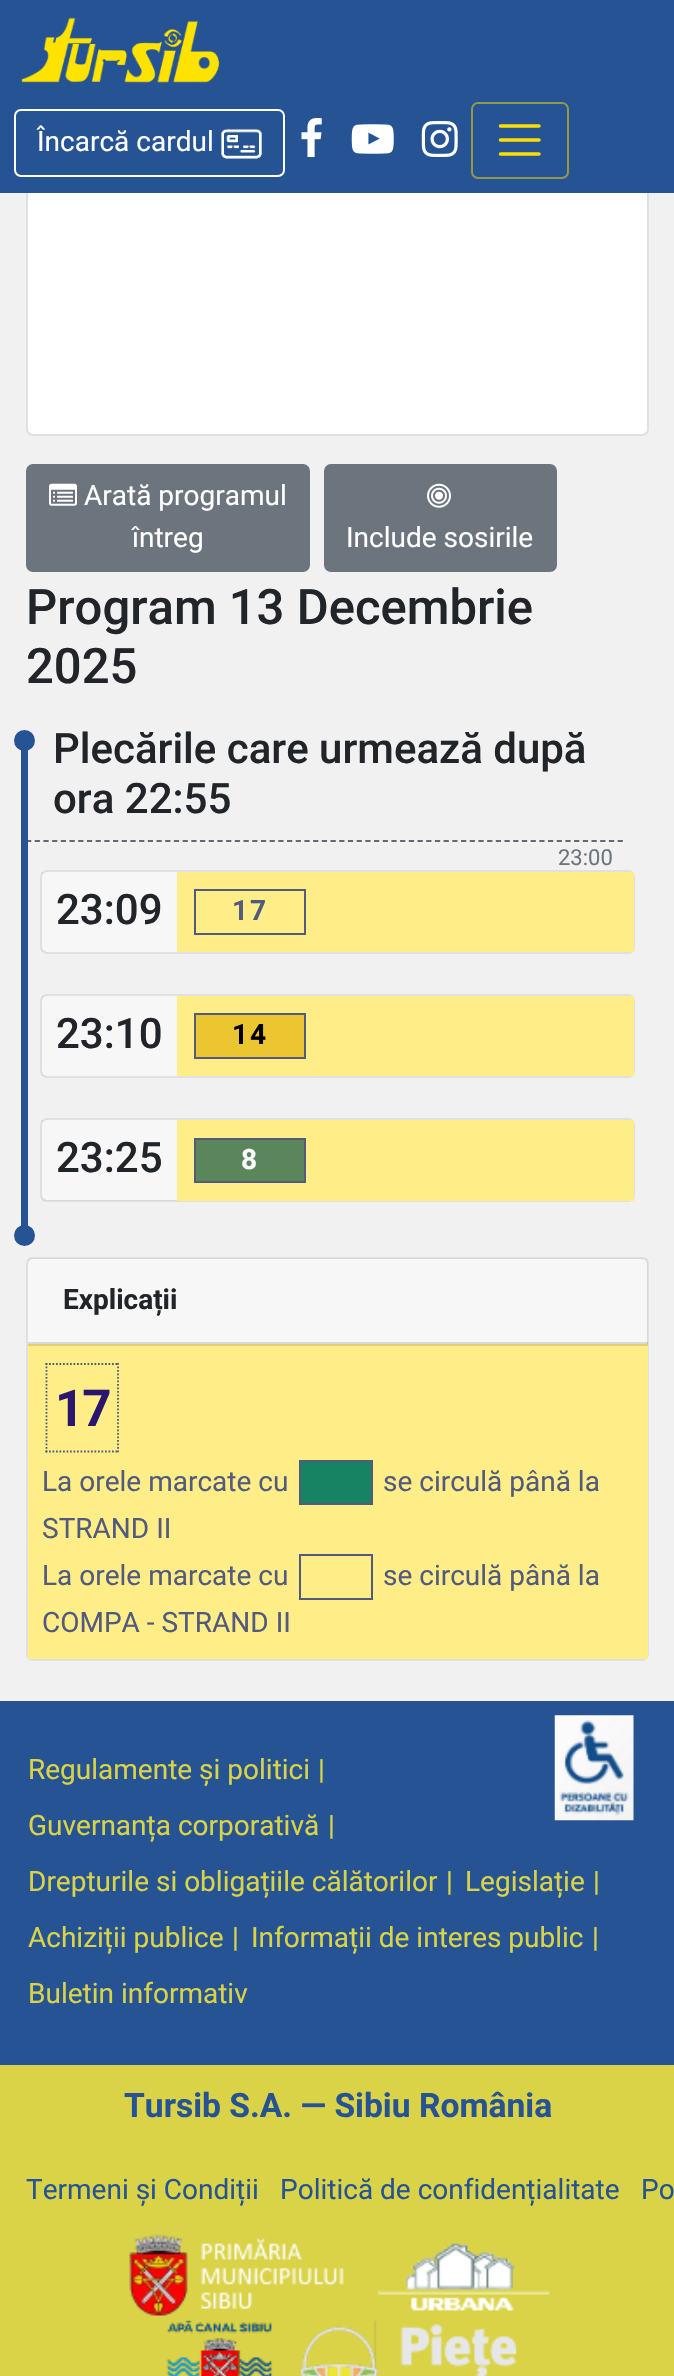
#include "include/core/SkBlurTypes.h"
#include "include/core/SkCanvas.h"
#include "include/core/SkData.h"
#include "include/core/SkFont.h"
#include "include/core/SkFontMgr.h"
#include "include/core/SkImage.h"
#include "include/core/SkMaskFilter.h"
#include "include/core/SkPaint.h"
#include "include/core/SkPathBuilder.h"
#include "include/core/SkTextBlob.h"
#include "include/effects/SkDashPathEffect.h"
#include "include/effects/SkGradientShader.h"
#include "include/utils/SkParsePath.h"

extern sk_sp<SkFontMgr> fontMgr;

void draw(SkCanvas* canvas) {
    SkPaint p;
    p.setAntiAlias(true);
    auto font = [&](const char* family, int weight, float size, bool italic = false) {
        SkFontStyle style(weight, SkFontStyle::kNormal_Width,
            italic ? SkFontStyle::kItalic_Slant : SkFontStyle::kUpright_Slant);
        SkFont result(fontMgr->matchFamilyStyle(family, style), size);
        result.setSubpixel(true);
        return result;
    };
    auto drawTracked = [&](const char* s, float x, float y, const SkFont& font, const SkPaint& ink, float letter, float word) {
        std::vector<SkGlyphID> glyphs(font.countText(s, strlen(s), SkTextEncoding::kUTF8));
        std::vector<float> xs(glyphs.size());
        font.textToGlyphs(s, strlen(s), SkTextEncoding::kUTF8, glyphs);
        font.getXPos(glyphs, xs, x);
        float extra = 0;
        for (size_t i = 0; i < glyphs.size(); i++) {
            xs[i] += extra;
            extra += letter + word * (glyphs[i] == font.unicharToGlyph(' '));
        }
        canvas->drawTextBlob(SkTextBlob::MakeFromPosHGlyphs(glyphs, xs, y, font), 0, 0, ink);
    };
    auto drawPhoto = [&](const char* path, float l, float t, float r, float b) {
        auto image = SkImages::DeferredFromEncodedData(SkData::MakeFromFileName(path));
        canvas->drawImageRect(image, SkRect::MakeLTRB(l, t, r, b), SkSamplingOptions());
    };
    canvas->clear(0xFFF1F1F1);
    p.setColor(0xFFFFFFFF);
    canvas->drawRoundRect(SkRect::MakeLTRB(26, -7, 649, 436), 7, 7, p);
    p.setStyle(SkPaint::kStroke_Style);
    p.setStrokeWidth(2);
    p.setColor(0x1F000000);
    canvas->drawRoundRect(SkRect::MakeLTRB(27, -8, 648, 435), 6, 6, p);
    p.setStyle(SkPaint::kFill_Style);
    p.setColor(0xFF255393);
    canvas->drawRect(SkRect::MakeLTRB(0, 0, 674, 193), p);
    drawPhoto("media/1.png", 21, 17, 220, 83);
    p.setStyle(SkPaint::kStroke_Style);
    p.setColor(0xFFFFFFFF);
    canvas->drawRoundRect(SkRect::MakeLTRB(15, 110, 284, 176), 6, 6, p);
    auto font1 = font("Roboto", 400, 28);
    p.setStyle(SkPaint::kFill_Style);
    canvas->drawString("Încarcă cardul", 37, 151, font1, p);
    drawPhoto("media/2.png", 221, 128, 262, 159);
    drawPhoto("media/3.png", 301, 118, 322, 157);
    drawPhoto("media/4.png", 351, 124, 394, 154);
    drawPhoto("media/5.png", 421, 121, 458, 157);
    p.setStyle(SkPaint::kStroke_Style);
    p.setColor(0xFF91994A);
    canvas->drawRoundRect(SkRect::MakeLTRB(472, 103, 568, 178), 6, 6, p);
    p.setStrokeWidth(3.5f);
    p.setStrokeCap(SkPaint::kRound_Cap);
    p.setColor(0xFFFCDF00);
    canvas->drawPath(SkPathBuilder().moveTo(500.5f, 126).lineTo(539, 126).moveTo(500.5f, 140).lineTo(539, 140).moveTo(500.5f, 154).lineTo(539, 154).detach(), p);
    p.setStyle(SkPaint::kFill_Style);
    p.setColor(0xFF6C757D);
    canvas->drawRoundRect(SkRect::MakeLTRB(27, 465, 309, 571), 6, 6, p);
    p.setStyle(SkPaint::kStroke_Style);
    p.setStrokeWidth(2);
    p.setStrokeCap(SkPaint::kButt_Cap);
    canvas->drawRoundRect(SkRect::MakeLTRB(27, 465, 309, 571), 6, 6, p);
    drawPhoto("media/6.png", 49, 483, 77, 506);
    p.setStyle(SkPaint::kFill_Style);
    p.setColor(0xFFFFFFFF);
    canvas->drawString("Arată programul", 84, 505, font1, p);
    canvas->drawString("întreg", 132, 547, font1, p);
    p.setColor(0xFF6C757D);
    canvas->drawRoundRect(SkRect::MakeLTRB(325, 465, 556, 571), 6, 6, p);
    p.setStyle(SkPaint::kStroke_Style);
    canvas->drawRoundRect(SkRect::MakeLTRB(325, 465, 556, 571), 6, 6, p);
    drawPhoto("media/7.png", 427, 483, 451, 508);
    p.setStyle(SkPaint::kFill_Style);
    p.setColor(0xFFFFFFFF);
    canvas->drawString("Include sosirile", 346, 547, font1, p);
    auto font2 = font("Roboto", 500, 49);
    p.setColor(0xFF212529);
    canvas->drawString("Program 13 Decembrie", 26, 624, font2, p);
    canvas->drawString("2025", 26, 683, font2, p);
    p.setStyle(SkPaint::kStroke_Style);
    p.setStrokeWidth(1.8f);
    p.setColor(0xFF666677);
    p.setPathEffect(SkDashPathEffect::Make({{5.25f, 3.45f}}, 0));
    canvas->drawPath(SkPathBuilder().moveTo(26, 841).lineTo(623, 841).detach(), p);
    p.setPathEffect(nullptr);
    p.setStyle(SkPaint::kFill_Style);
    p.setColor(0xFF255393);
    canvas->drawRect(SkRect::MakeLTRB(21, 750, 28, 1226), p);
    canvas->drawCircle(24.5f, 740.5f, 10.5f, p);
    canvas->drawCircle(24.5f, 1235.5f, 10.5f, p);
    auto font3 = font("Roboto", 500, 42);
    p.setColor(0xFF212529);
    canvas->drawString("Plecările care urmează după", 53, 763, font3, p);
    canvas->drawString("ora 22:55", 53, 813, font3, p);
    auto font4 = font("Roboto", 400, 22);
    p.setColor(0xFF6C757D);
    canvas->drawString("23:00", 558, 865, font4, p);
    p.setColor(0xFFFFFFFF);
    canvas->drawRoundRect(SkRect::MakeLTRB(40, 870, 635, 954), 7, 7, p);
    p.setStyle(SkPaint::kStroke_Style);
    p.setStrokeWidth(2);
    p.setColor(0x1F000000);
    canvas->drawRoundRect(SkRect::MakeLTRB(41, 871, 634, 953), 6, 6, p);
    p.setStyle(SkPaint::kFill_Style);
    p.setColor(0x08000000);
    canvas->drawRect(SkRect::MakeLTRB(42, 872, 177, 952), p);
    p.setColor(0xFF212529);
    canvas->drawString("23:09", 56, 924, font3, p);
    p.setColor(0xFFFFEE88);
    canvas->drawRect(SkRect::MakeLTRB(177, 872, 634, 952), p);
    p.setStyle(SkPaint::kStroke_Style);
    p.setColor(0xFF525A7E);
    canvas->drawRect(SkRect::MakeLTRB(195, 890, 305, 934), p);
    auto font5 = font("Roboto", 700, 28);
    p.setStyle(SkPaint::kFill_Style);
    drawTracked("17", 232, 920, font5, p, 2, 0);
    p.setColor(0xFFFFFFFF);
    canvas->drawRoundRect(SkRect::MakeLTRB(40, 994, 635, 1078), 7, 7, p);
    p.setStyle(SkPaint::kStroke_Style);
    p.setColor(0x1F000000);
    canvas->drawRoundRect(SkRect::MakeLTRB(41, 995, 634, 1077), 6, 6, p);
    p.setStyle(SkPaint::kFill_Style);
    p.setColor(0x08000000);
    canvas->drawRect(SkRect::MakeLTRB(42, 996, 177, 1076), p);
    p.setColor(0xFF212529);
    canvas->drawString("23:10", 56, 1048, font3, p);
    p.setColor(0xFFFFEE88);
    canvas->drawRect(SkRect::MakeLTRB(177, 996, 634, 1076), p);
    p.setColor(0xFFEBC630);
    canvas->drawRect(SkRect::MakeLTRB(195, 1014, 305, 1058), p);
    p.setStyle(SkPaint::kStroke_Style);
    p.setColor(0xFF525A7E);
    canvas->drawRect(SkRect::MakeLTRB(195, 1014, 305, 1058), p);
    p.setStyle(SkPaint::kFill_Style);
    p.setColor(0xFF000000);
    drawTracked("14", 232, 1044, font5, p, 2, 0);
    p.setColor(0xFFFFFFFF);
    canvas->drawRoundRect(SkRect::MakeLTRB(40, 1118, 635, 1202), 7, 7, p);
    p.setStyle(SkPaint::kStroke_Style);
    p.setColor(0x1F000000);
    canvas->drawRoundRect(SkRect::MakeLTRB(41, 1119, 634, 1201), 6, 6, p);
    p.setStyle(SkPaint::kFill_Style);
    p.setColor(0x08000000);
    canvas->drawRect(SkRect::MakeLTRB(42, 1120, 177, 1201), p);
    p.setColor(0xFF212529);
    canvas->drawString("23:25", 56, 1172, font3, p);
    p.setColor(0xFFFFEE88);
    canvas->drawRect(SkRect::MakeLTRB(177, 1120, 634, 1201), p);
    p.setColor(0xFF5B865C);
    canvas->drawRect(SkRect::MakeLTRB(195, 1139, 305, 1182), p);
    p.setStyle(SkPaint::kStroke_Style);
    p.setColor(0xFF525A7E);
    canvas->drawRect(SkRect::MakeLTRB(195, 1139, 305, 1182), p);
    p.setStyle(SkPaint::kFill_Style);
    p.setColor(0xFFFFFFFF);
    drawTracked("8", 241, 1169, font5, p, 2, 0);
    canvas->drawRoundRect(SkRect::MakeLTRB(26, 1257, 649, 1661), 7, 7, p);
    p.setStyle(SkPaint::kStroke_Style);
    p.setColor(0x1F000000);
    canvas->drawRoundRect(SkRect::MakeLTRB(27, 1258, 648, 1660), 6, 6, p);
    p.setStyle(SkPaint::kFill_Style);
    p.setColor(0x08000000);
    canvas->drawRect(SkRect::MakeLTRB(28, 1258, 648, 1344), p);
    p.setColor(0x1F000000);
    canvas->drawRect(SkRect::MakeLTRB(28, 1342, 648, 1344), p);
    p.setColor(0xFF212529);
    canvas->drawString("Explicații", 63, 1309, font5, p);
    p.setColor(0xFFFFEE88);
    canvas->drawRect(SkRect::MakeLTRB(28, 1346, 648, 1659), p);
    p.setColor(0xFFDFD077);
    canvas->drawRect(SkRect::MakeLTRB(28, 1344, 648, 1346), p);
    p.setStyle(SkPaint::kStroke_Style);
    p.setStrokeWidth(1.8f);
    p.setColor(0xFF525A7E);
    p.setPathEffect(SkDashPathEffect::Make({{1.75f, 1.75f}}, 0));
    canvas->drawPath(SkPathBuilder().moveTo(45.5f, 1364).lineTo(119, 1364).detach(), p);
    p.setPathEffect(nullptr);
    p.setPathEffect(SkDashPathEffect::Make({{1.75f, 1.75f}}, 0));
    canvas->drawPath(SkPathBuilder().moveTo(118, 1363).lineTo(118, 1452.5f).detach(), p);
    p.setPathEffect(nullptr);
    p.setPathEffect(SkDashPathEffect::Make({{1.75f, 1.75f}}, 0));
    canvas->drawPath(SkPathBuilder().moveTo(45.5f, 1451.5f).lineTo(119, 1451.5f).detach(), p);
    p.setPathEffect(nullptr);
    p.setPathEffect(SkDashPathEffect::Make({{1.75f, 1.75f}}, 0));
    canvas->drawPath(SkPathBuilder().moveTo(46.5f, 1363).lineTo(46.5f, 1452.5f).detach(), p);
    p.setPathEffect(nullptr);
    auto font6 = font("Roboto", 700, 51);
    p.setStyle(SkPaint::kFill_Style);
    p.setColor(0xFF28166F);
    drawTracked("17", 55, 1426, font6, p, -2, 0);
    p.setColor(0xFF525A7E);
    canvas->drawString("La orele marcate cu", 42, 1491, font1, p);
    p.setColor(0xFF188363);
    canvas->drawRect(SkRect::MakeLTRB(300, 1461, 372, 1504), p);
    p.setStyle(SkPaint::kStroke_Style);
    p.setStrokeWidth(2);
    p.setColor(0xFF525A7E);
    canvas->drawRect(SkRect::MakeLTRB(300, 1461, 372, 1504), p);
    p.setStyle(SkPaint::kFill_Style);
    {
        const struct { const char* s; float x, y; } items[] = {
            {"se circulă până la", 383, 1491},
            {"STRAND II", 42, 1538},
            {"La orele marcate cu", 42, 1585},
        };
        for (auto [s, x, y] : items) {
            canvas->drawString(s, x, y, font1, p);
        }
    }
    p.setStyle(SkPaint::kStroke_Style);
    canvas->drawRect(SkRect::MakeLTRB(300, 1555, 372, 1599), p);
    p.setStyle(SkPaint::kFill_Style);
    canvas->drawString("se circulă până la", 383, 1585, font1, p);
    canvas->drawString("COMPA - STRAND II", 42, 1632, font1, p);
    p.setColor(0xFFDAD348);
    canvas->drawRect(SkRect::MakeLTRB(0, 2065, 674, 2376), p);
    p.setColor(0xFF255393);
    canvas->drawRect(SkRect::MakeLTRB(0, 1701, 674, 2065), p);
    drawPhoto("media/8.png", 554, 1715, 634, 1821);
    p.setColor(0xFFDAD348);
    {
        const struct { const char* s; float x, y; } items[] = {
            {"Regulamente și politici", 28, 1779},
            {"|", 318, 1779},
            {"Guvernanța corporativă", 28, 1835},
            {"|", 328, 1835},
            {"Drepturile si obligațiile călătorilor", 28, 1891},
            {"|", 446, 1891},
            {"Legislație", 465, 1891},
            {"|", 593, 1891},
            {"Achiziții publice", 28, 1947},
            {"|", 232, 1947},
            {"Informații de interes public", 251, 1947},
            {"|", 592, 1947},
            {"Buletin informativ", 28, 2003},
        };
        for (auto [s, x, y] : items) {
            canvas->drawString(s, x, y, font1, p);
        }
    }
    auto font7 = font("Roboto", 700, 33.6f);
    p.setColor(0xFF255393);
    canvas->drawString("Tursib S.A. — Sibiu România", 124, 2117, font7, p);
    {
        const struct { const char* s; float x, y; } items[] = {
            {"Termeni și Condiții", 26, 2199},
            {"Politică de confidențialitate", 280, 2199},
            {"Po", 641, 2199},
        };
        for (auto [s, x, y] : items) {
            canvas->drawString(s, x, y, font1, p);
        }
    }
    drawPhoto("media/9.png", 129, 2234, 344, 2316);
    drawPhoto("media/10.png", 377, 2243, 550, 2311);
    drawPhoto("media/11.png", 166, 2320, 273, 2376);
    drawPhoto("media/12.png", 299, 2320, 517, 2376);
}
